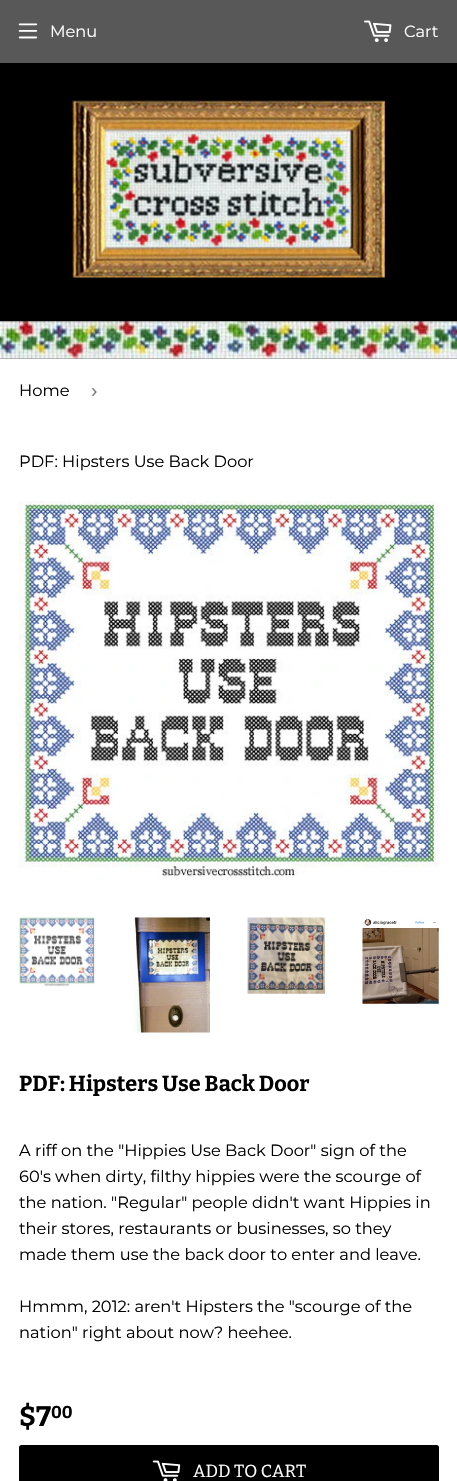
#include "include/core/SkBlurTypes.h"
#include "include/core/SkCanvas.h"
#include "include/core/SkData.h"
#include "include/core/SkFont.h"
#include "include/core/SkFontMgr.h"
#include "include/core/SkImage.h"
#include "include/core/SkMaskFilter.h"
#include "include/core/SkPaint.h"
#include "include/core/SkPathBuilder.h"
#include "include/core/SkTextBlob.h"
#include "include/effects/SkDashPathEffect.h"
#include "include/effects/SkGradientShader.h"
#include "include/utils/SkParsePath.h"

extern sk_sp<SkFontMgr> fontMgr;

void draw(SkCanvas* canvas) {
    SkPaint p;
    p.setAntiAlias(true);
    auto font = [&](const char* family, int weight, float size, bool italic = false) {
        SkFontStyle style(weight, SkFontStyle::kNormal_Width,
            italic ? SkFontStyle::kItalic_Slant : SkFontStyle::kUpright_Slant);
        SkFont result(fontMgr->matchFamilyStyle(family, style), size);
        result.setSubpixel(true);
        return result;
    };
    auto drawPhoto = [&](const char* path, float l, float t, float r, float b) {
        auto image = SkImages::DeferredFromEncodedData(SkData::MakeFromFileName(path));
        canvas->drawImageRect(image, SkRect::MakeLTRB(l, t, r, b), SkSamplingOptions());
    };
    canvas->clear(0xFFFFFFFF);
    p.setColor(0xFF585858);
    canvas->drawRect(SkRect::MakeLTRB(0, 0, 457, 63), p);
    drawPhoto("media/1.png", 18, 23, 38, 39);
    auto font1 = font("Montserrat", 400, 16.25f);
    p.setColor(0xFFFFFFFF);
    canvas->drawString("Menu", 50, 37, font1, p);
    drawPhoto("media/2.png", 364, 20, 392, 43);
    canvas->drawString("Cart", 404, 37, font1, p);
    p.setColor(0xFF000000);
    canvas->drawRect(SkRect::MakeLTRB(0, 63, 457, 359), p);
    drawPhoto("media/3.png", 72, 100, 385, 278);
    drawPhoto("media/4.png", 0, 321, 457, 359);
    canvas->drawString("Home", 19, 396, font1, p);
    auto font2 = font("Liberation Sans", 400, 19);
    p.setColor(0xFF767676);
    canvas->drawString("›", 91, 397, font2, p);
    p.setColor(0xFF000000);
    canvas->drawString("PDF: Hipsters Use Back Door", 19, 467, font1, p);
    drawPhoto("media/5.png", 18, 501, 439, 880);
    drawPhoto("media/6.png", 19, 917, 95, 987);
    drawPhoto("media/7.png", 134, 917, 210, 1033);
    drawPhoto("media/8.png", 247, 917, 325, 994);
    drawPhoto("media/9.png", 362, 917, 439, 1004);
    auto font3 = font("Bitter", 700, 21.7f);
    canvas->drawString("PDF: Hipsters Use Back Door", 19, 1091, font3, p);
    {
        const struct { const char* s; float x, y; } items[] = {
            {"A riff on the \"Hippies Use Back Door\" sign of the", 19, 1156},
            {"60's when dirty, filthy hippies were the scourge of", 19, 1182},
            {"the nation. \"Regular\" people didn't want Hippies in", 19, 1208},
            {"their stores, restaurants or businesses, so they", 19, 1234},
            {"made them use the back door to enter and leave.", 19, 1260},
            {"Hmmm, 2012: aren't Hipsters the \"scourge of the", 19, 1312},
            {"nation\" right about now? heehee.", 19, 1338},
        };
        for (auto [s, x, y] : items) {
            canvas->drawString(s, x, y, font1, p);
        }
    }
    auto font4 = font("Bitter", 700, 28);
    canvas->drawString("$7", 19, 1426, font4, p);
    auto font5 = font("Bitter", 700, 17);
    canvas->drawString("00", 51, 1418, font5, p);
    canvas->drawRoundRect(SkRect::MakeLTRB(19, 1445, 439, 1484), 2.5f, 2.5f, p);
    drawPhoto("media/10.png", 152, 1460, 181, 1481);
    auto font6 = font("Bitter", 400, 17.5f);
    p.setColor(0xFFFFFFFF);
    canvas->drawString("ADD TO CART", 193, 1477, font6, p);
}
